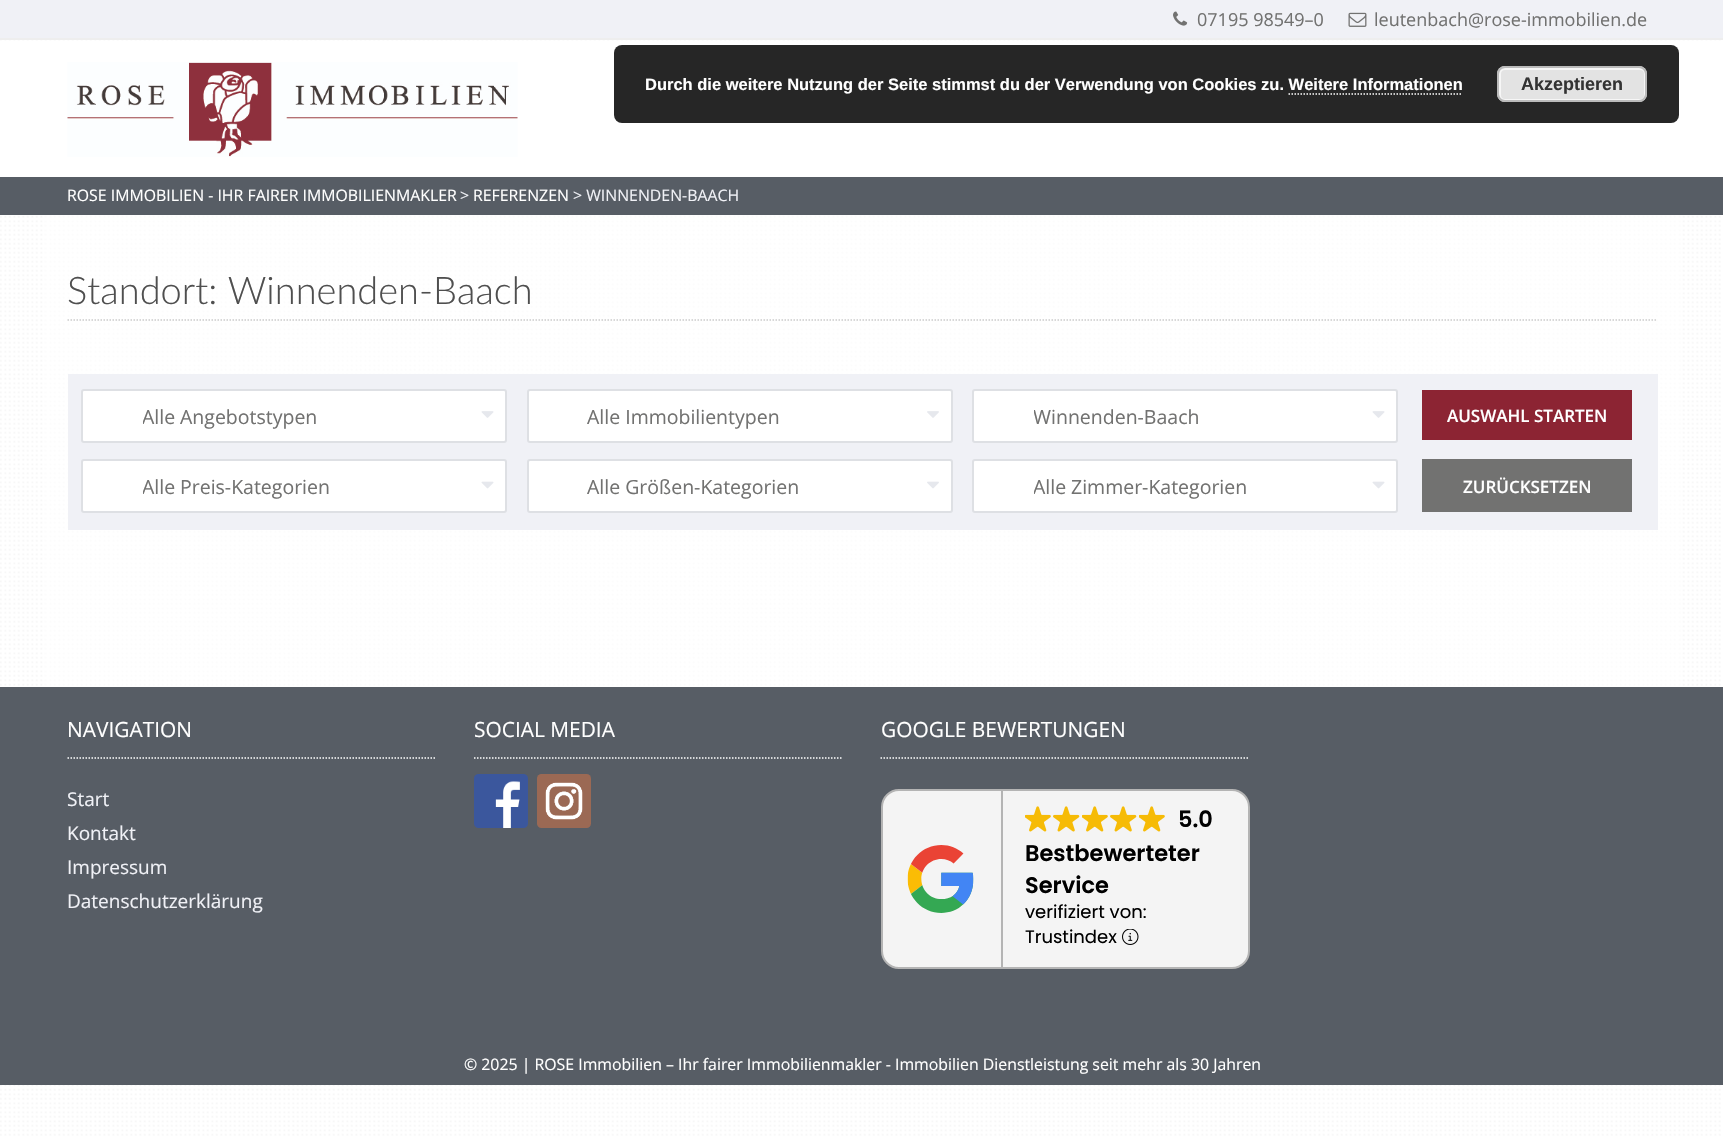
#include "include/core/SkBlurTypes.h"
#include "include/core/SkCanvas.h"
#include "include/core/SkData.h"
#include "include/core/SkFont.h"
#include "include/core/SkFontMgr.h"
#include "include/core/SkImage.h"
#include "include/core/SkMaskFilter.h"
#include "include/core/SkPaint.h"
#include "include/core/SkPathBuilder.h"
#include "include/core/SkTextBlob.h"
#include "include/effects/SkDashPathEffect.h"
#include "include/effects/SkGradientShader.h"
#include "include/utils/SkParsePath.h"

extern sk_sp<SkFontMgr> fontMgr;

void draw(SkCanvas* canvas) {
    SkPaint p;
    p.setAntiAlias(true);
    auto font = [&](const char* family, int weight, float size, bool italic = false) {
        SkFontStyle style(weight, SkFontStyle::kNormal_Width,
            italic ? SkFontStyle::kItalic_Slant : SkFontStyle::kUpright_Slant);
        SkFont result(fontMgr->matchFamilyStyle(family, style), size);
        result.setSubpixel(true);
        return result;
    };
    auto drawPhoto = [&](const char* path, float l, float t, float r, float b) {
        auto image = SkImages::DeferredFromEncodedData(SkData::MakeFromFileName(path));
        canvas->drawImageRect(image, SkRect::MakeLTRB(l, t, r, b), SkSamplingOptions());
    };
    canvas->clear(0xFFFFFFFF);
    drawPhoto("media/1.png", 0, 40, 1721, 1136);
    p.setColor(0xFFF0F1F6);
    canvas->drawRect(SkRect::MakeLTRB(0, 0, 1723, 38), p);
    p.setColor(0xFFEEEEEE);
    canvas->drawRect(SkRect::MakeLTRB(0, 38, 1723, 40), p);
    drawPhoto("media/2.png", 1173, 11, 1188, 26);
    auto font1 = font("Open Sans", 400, 18);
    p.setColor(0xFF727271);
    canvas->drawString("07195 98549–0", 1197, 26, font1, p);
    drawPhoto("media/3.png", 1348, 12, 1367, 27);
    canvas->drawString("leutenbach@rose-immobilien.de", 1374, 26, font1, p);
    p.setColor(0xFFFFFFFF);
    canvas->drawRect(SkRect::MakeLTRB(0, 41, 1721, 177), p);
    drawPhoto("media/4.png", 67, 62, 518, 157);
    p.setColor(0xFF575D65);
    canvas->drawRect(SkRect::MakeLTRB(0, 177, 1723, 215), p);
    auto font2 = font("Open Sans", 400, 15.85f);
    p.setColor(0xFFFFFFFF);
    canvas->drawString("ROSE IMMOBILIEN - IHR FAIRER IMMOBILIENMAKLER", 67, 201, font2, p);
    p.setColor(0xFFF0F1F6);
    canvas->drawString(">", 460, 201, font2, p);
    p.setColor(0xFFFFFFFF);
    canvas->drawString("REFERENZEN", 473, 201, font2, p);
    p.setColor(0xFFF0F1F6);
    canvas->drawString("> WINNENDEN-BAACH", 573, 201, font2, p);
    p.setColor(0x99FFFFFF);
    canvas->drawRect(SkRect::MakeLTRB(45, 216, 1680, 686), p);
    p.setStyle(SkPaint::kStroke_Style);
    p.setStrokeWidth(1.5f);
    p.setColor(0xFFCCCCCC);
    p.setPathEffect(SkDashPathEffect::Make({{1.5f, 1.5f}}, 0));
    canvas->drawPath(SkPathBuilder().moveTo(67.5f, 320).lineTo(1657.5f, 320).detach(), p);
    p.setPathEffect(nullptr);
    auto font3 = font("Lato", 300, 38);
    p.setStyle(SkPaint::kFill_Style);
    p.setColor(0xFF4F4F4F);
    canvas->drawString("Standort: Winnenden-Baach", 67, 304, font3, p);
    p.setColor(0xFFF0F1F6);
    canvas->drawRect(SkRect::MakeLTRB(68, 374, 1658, 530), p);
    p.setColor(0xFFFFFFFF);
    canvas->drawRoundRect(SkRect::MakeLTRB(82, 390, 506, 442), 2, 2, p);
    p.setStyle(SkPaint::kStroke_Style);
    p.setStrokeWidth(2);
    p.setColor(0xFFDEE0E4);
    canvas->drawRoundRect(SkRect::MakeLTRB(82, 390, 506, 442), 2, 2, p);
    canvas->save();
    canvas->clipRect(SkRect::MakeLTRB(143, 393, 467, 438));
    auto font4 = font("Open Sans", 400, 19.5f);
    p.setStyle(SkPaint::kFill_Style);
    p.setColor(0xFF727271);
    canvas->drawString("Alle", 142, 424, font4, p);
    canvas->restore();
    canvas->drawString("Angebotstypen", 180, 424, font4, p);
    drawPhoto("media/5.png", 481, 411, 494, 418);
    p.setColor(0xFFFFFFFF);
    canvas->drawRoundRect(SkRect::MakeLTRB(528, 390, 952, 442), 2, 2, p);
    p.setStyle(SkPaint::kStroke_Style);
    p.setColor(0xFFDEE0E4);
    canvas->drawRoundRect(SkRect::MakeLTRB(528, 390, 952, 442), 2, 2, p);
    p.setStyle(SkPaint::kFill_Style);
    p.setColor(0xFF727271);
    canvas->drawString("Alle Immobilientypen", 587, 424, font4, p);
    drawPhoto("media/6.png", 927, 411, 939, 418);
    p.setColor(0xFFFFFFFF);
    canvas->drawRoundRect(SkRect::MakeLTRB(973, 390, 1397, 442), 2, 2, p);
    p.setStyle(SkPaint::kStroke_Style);
    p.setColor(0xFFDEE0E4);
    canvas->drawRoundRect(SkRect::MakeLTRB(973, 390, 1397, 442), 2, 2, p);
    canvas->save();
    canvas->clipRect(SkRect::MakeLTRB(1034, 393, 1358, 438));
    p.setStyle(SkPaint::kFill_Style);
    p.setColor(0xFF727271);
    canvas->drawString("Winnenden-Baach", 1033, 424, font4, p);
    canvas->restore();
    drawPhoto("media/5.png", 1372, 411, 1385, 418);
    p.setColor(0xFFFFFFFF);
    canvas->drawRoundRect(SkRect::MakeLTRB(82, 460, 506, 512), 2, 2, p);
    p.setStyle(SkPaint::kStroke_Style);
    p.setColor(0xFFDEE0E4);
    canvas->drawRoundRect(SkRect::MakeLTRB(82, 460, 506, 512), 2, 2, p);
    canvas->save();
    canvas->clipRect(SkRect::MakeLTRB(143, 464, 467, 509));
    p.setStyle(SkPaint::kFill_Style);
    p.setColor(0xFF727271);
    canvas->drawString("Alle", 142, 494, font4, p);
    canvas->restore();
    canvas->drawString("Preis-Kategorien", 180, 494, font4, p);
    drawPhoto("media/7.png", 481, 481, 494, 489);
    p.setColor(0xFFFFFFFF);
    canvas->drawRoundRect(SkRect::MakeLTRB(528, 460, 952, 512), 2, 2, p);
    p.setStyle(SkPaint::kStroke_Style);
    p.setColor(0xFFDEE0E4);
    canvas->drawRoundRect(SkRect::MakeLTRB(528, 460, 952, 512), 2, 2, p);
    p.setStyle(SkPaint::kFill_Style);
    p.setColor(0xFF727271);
    canvas->drawString("Alle Größen-Kategorien", 587, 494, font4, p);
    drawPhoto("media/8.png", 927, 481, 939, 489);
    p.setColor(0xFFFFFFFF);
    canvas->drawRoundRect(SkRect::MakeLTRB(973, 460, 1397, 512), 2, 2, p);
    p.setStyle(SkPaint::kStroke_Style);
    p.setColor(0xFFDEE0E4);
    canvas->drawRoundRect(SkRect::MakeLTRB(973, 460, 1397, 512), 2, 2, p);
    canvas->save();
    canvas->clipRect(SkRect::MakeLTRB(1034, 464, 1358, 509));
    p.setStyle(SkPaint::kFill_Style);
    p.setColor(0xFF727271);
    canvas->drawString("Alle", 1033, 494, font4, p);
    canvas->restore();
    canvas->drawString("Zimmer-Kategorien", 1071, 494, font4, p);
    drawPhoto("media/7.png", 1372, 481, 1385, 489);
    p.setColor(0xFF8C2433);
    canvas->drawRect(SkRect::MakeLTRB(1422, 390, 1632, 440), p);
    auto font5 = font("Open Sans", 600, 17);
    p.setColor(0xFFFFFFFF);
    canvas->drawString("AUSWAHL STARTEN", 1447, 422, font5, p);
    p.setColor(0xFF727271);
    canvas->drawRect(SkRect::MakeLTRB(1422, 459, 1632, 512), p);
    p.setColor(0xFFFFFFFF);
    canvas->drawString("ZURÜCKSETZEN", 1463, 493, font5, p);
    p.setColor(0xFF575D65);
    canvas->drawRect(SkRect::MakeLTRB(0, 687, 1723, 1085), p);
    p.setStyle(SkPaint::kStroke_Style);
    p.setStrokeWidth(1.5f);
    p.setColor(0xFFFFFFFF);
    p.setPathEffect(SkDashPathEffect::Make({{1.5f, 1.5f}}, 0));
    canvas->drawPath(SkPathBuilder().moveTo(67.5f, 758).lineTo(435, 758).detach(), p);
    p.setPathEffect(nullptr);
    auto font6 = font("Open Sans", 400, 20.9f);
    p.setStyle(SkPaint::kFill_Style);
    canvas->drawString("NAVIGATION", 67, 737, font6, p);
    auto font7 = font("Open Sans", 400, 19);
    p.setColor(0xFFF0F1F6);
    {
        const struct { const char* s; float x, y; } items[] = {
            {"Start", 67, 806},
            {"Kontakt", 67, 840},
            {"Impressum", 67, 874},
            {"Datenschutzerklärung", 67, 908},
        };
        for (auto [s, x, y] : items) {
            canvas->drawString(s, x, y, font7, p);
        }
    }
    p.setStyle(SkPaint::kStroke_Style);
    p.setColor(0xFFFFFFFF);
    p.setPathEffect(SkDashPathEffect::Make({{1.5f, 1.5f}}, 0));
    canvas->drawPath(SkPathBuilder().moveTo(474, 758).lineTo(843, 758).detach(), p);
    p.setPathEffect(nullptr);
    p.setStyle(SkPaint::kFill_Style);
    canvas->drawString("SOCIAL MEDIA", 474, 737, font6, p);
    drawPhoto("media/9.png", 474, 774, 528, 828);
    drawPhoto("media/10.png", 537, 774, 591, 828);
    p.setStyle(SkPaint::kStroke_Style);
    p.setPathEffect(SkDashPathEffect::Make({{1.5f, 1.5f}}, 0));
    canvas->drawPath(SkPathBuilder().moveTo(880.5f, 758).lineTo(1249.5f, 758).detach(), p);
    p.setPathEffect(nullptr);
    p.setStyle(SkPaint::kFill_Style);
    canvas->drawString("GOOGLE BEWERTUNGEN", 881, 737, font6, p);
    p.setColor(0xFFF4F4F4);
    canvas->drawRoundRect(SkRect::MakeLTRB(882, 790, 1249, 968), 17, 17, p);
    p.setStyle(SkPaint::kStroke_Style);
    p.setStrokeWidth(2);
    p.setColor(0xFFB4B4B4);
    canvas->drawRoundRect(SkRect::MakeLTRB(882, 790, 1249, 968), 17, 17, p);
    p.setStyle(SkPaint::kFill_Style);
    canvas->drawRect(SkRect::MakeLTRB(1001, 791, 1003, 968), p);
    drawPhoto("media/11.png", 907, 845, 974, 913);
    drawPhoto("media/12.png", 1025, 806, 1051, 832);
    drawPhoto("media/13.png", 1053, 806, 1080, 832);
    drawPhoto("media/12.png", 1082, 806, 1108, 832);
    drawPhoto("media/13.png", 1110, 806, 1137, 832);
    drawPhoto("media/12.png", 1139, 806, 1165, 832);
    auto font8 = font("Poppins", 600, 22.5f);
    p.setColor(0xFF000000);
    {
        const struct { const char* s; float x, y; } items[] = {
            {"5.0", 1178, 827},
            {"Bestbewerteter", 1025, 861},
            {"Service", 1025, 893},
        };
        for (auto [s, x, y] : items) {
            canvas->drawString(s, x, y, font8, p);
        }
    }
    auto font9 = font("Poppins", 400, 18);
    canvas->drawString("verifiziert von:", 1025, 918, font9, p);
    canvas->drawString("Trustindex", 1025, 943, font9, p);
    drawPhoto("media/14.png", 1122, 929, 1139, 945);
    p.setColor(0xFFFFFFFF);
    canvas->drawString("© 2025 | ROSE Immobilien – Ihr fairer Immobilienmakler - Immobilien Dienstleistung seit mehr als 30 Jahren", 464, 1070, font2, p);
    p.setColor(0xD9000000);
    canvas->drawRoundRect(SkRect::MakeLTRB(614, 45, 1679, 123), 8, 8, p);
    auto font10 = font("Liberation Sans", 700, 16.5f);
    p.setColor(0xFFFFFFFF);
    canvas->drawString("Durch die weitere Nutzung der Seite stimmst du der Verwendung von Cookies zu. Weitere Informationen", 645, 90, font10, p);
    p.setColor(0xFFE3E3E3);
    canvas->drawRoundRect(SkRect::MakeLTRB(1497, 66, 1647, 102), 8, 8, p);
    p.setStyle(SkPaint::kStroke_Style);
    p.setColor(0xFFF6F6F6);
    canvas->drawRoundRect(SkRect::MakeLTRB(1500, 69, 1645, 100), 5, 5, p);
    p.setColor(0xFFBBBBBB);
    canvas->drawRoundRect(SkRect::MakeLTRB(1498, 67, 1646, 101), 7, 7, p);
    auto font11 = font("Liberation Sans", 700, 18);
    p.setStyle(SkPaint::kFill_Style);
    p.setColor(0xFF333333);
    canvas->drawString("Akzeptieren", 1521, 90, font11, p);
    p.setStyle(SkPaint::kStroke_Style);
    p.setStrokeWidth(1.5f);
    p.setColor(0xFFFFFFFF);
    p.setPathEffect(SkDashPathEffect::Make({{1.5f, 1.5f}}, 0));
    canvas->drawPath(SkPathBuilder().moveTo(1288.5f, 94).lineTo(1462.5f, 94).detach(), p);
    p.setPathEffect(nullptr);
}
